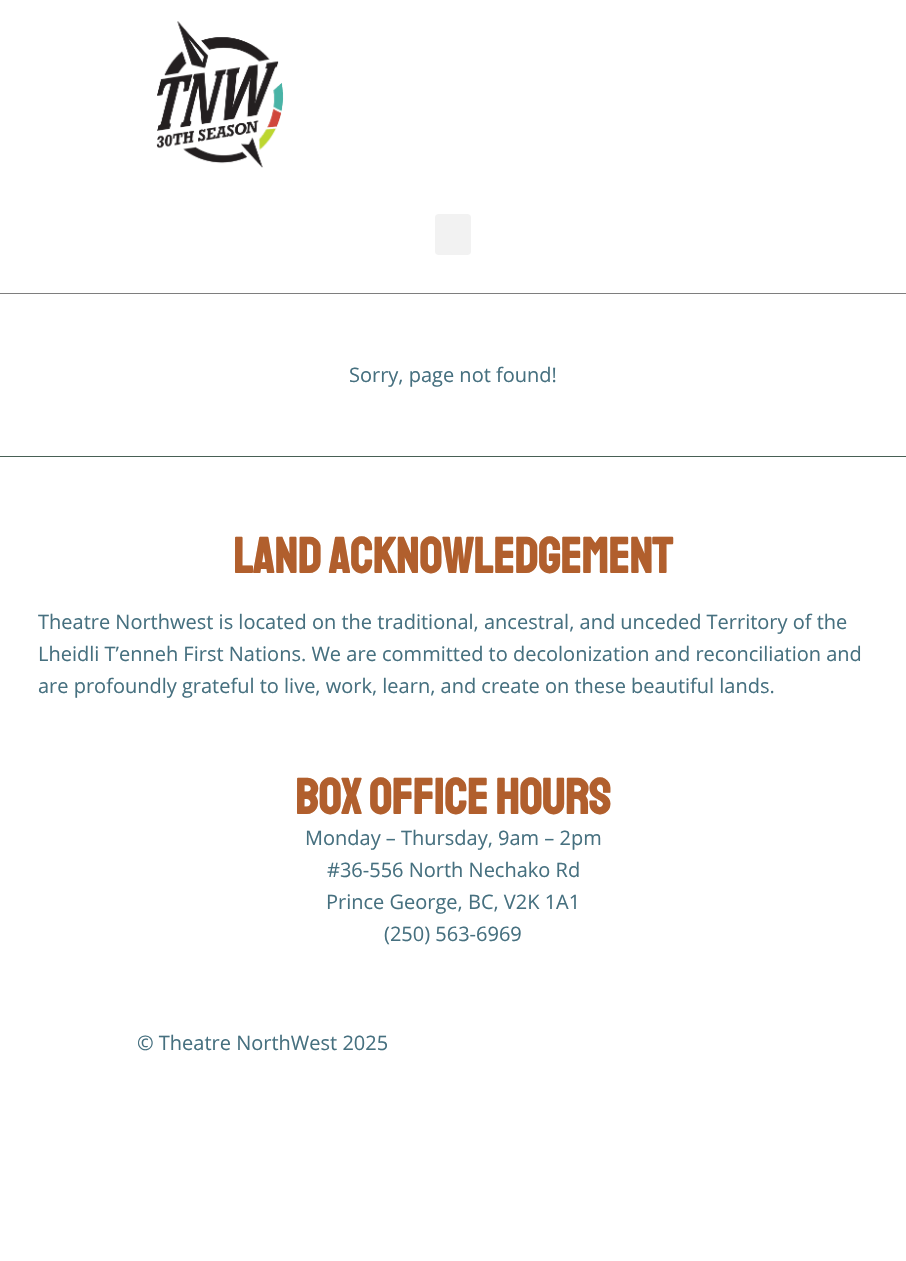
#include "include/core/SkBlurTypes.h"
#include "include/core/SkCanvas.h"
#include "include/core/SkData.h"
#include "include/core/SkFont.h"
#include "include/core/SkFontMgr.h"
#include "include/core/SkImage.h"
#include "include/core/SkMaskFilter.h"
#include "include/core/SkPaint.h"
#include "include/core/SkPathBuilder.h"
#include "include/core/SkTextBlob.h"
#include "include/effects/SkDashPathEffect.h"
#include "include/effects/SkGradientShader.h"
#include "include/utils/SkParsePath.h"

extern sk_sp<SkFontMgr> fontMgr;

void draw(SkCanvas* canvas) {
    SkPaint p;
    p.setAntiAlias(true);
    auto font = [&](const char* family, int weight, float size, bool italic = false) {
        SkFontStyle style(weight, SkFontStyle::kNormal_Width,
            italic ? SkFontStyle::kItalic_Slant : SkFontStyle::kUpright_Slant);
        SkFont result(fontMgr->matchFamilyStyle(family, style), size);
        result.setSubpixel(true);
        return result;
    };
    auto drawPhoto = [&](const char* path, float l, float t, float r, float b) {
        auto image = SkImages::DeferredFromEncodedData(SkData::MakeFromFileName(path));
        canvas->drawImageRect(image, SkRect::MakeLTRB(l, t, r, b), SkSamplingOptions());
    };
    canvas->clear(0xFFFFFFFF);
    p.setColor(0xFF7E7E7E);
    canvas->drawRect(SkRect::MakeLTRB(0, 293, 906, 294), p);
    drawPhoto("media/1.png", 156, 21, 284, 168);
    p.setColor(0xFFF2F2F2);
    canvas->drawRoundRect(SkRect::MakeLTRB(435, 214, 471, 255), 4, 4, p);
    auto font1 = font("Open Sans", 400, 20);
    p.setColor(0xFF46707F);
    canvas->drawString("Sorry, page not found!", 349, 382, font1, p);
    p.setColor(0xFF476055);
    canvas->drawRect(SkRect::MakeLTRB(0, 456, 906, 457), p);
    auto font2 = font("Staatliches", 700, 50);
    p.setColor(0xFFB15F2D);
    canvas->drawString("Land Acknowledgement", 233, 573, font2, p);
    p.setColor(0xFF46707F);
    {
        const struct { const char* s; float x, y; } items[] = {
            {"Theatre Northwest is located on the traditional, ancestral, and unceded Territory of the", 38, 629},
            {"Lheidli T’enneh First Nations. We are committed to decolonization and reconciliation and", 38, 661},
            {"are profoundly grateful to live, work, learn, and create on these beautiful lands.", 38, 693},
        };
        for (auto [s, x, y] : items) {
            canvas->drawString(s, x, y, font1, p);
        }
    }
    p.setColor(0xFFB15F2D);
    canvas->drawString("Box Office Hours", 295, 814, font2, p);
    p.setColor(0xFF46707F);
    {
        const struct { const char* s; float x, y; } items[] = {
            {"Monday – Thursday, 9am – 2pm", 305, 845},
            {"#36-556 North Nechako Rd", 327, 877},
            {"Prince George, BC, V2K 1A1", 326, 909},
            {"(250) 563-6969", 384, 941},
            {"© Theatre NorthWest 2025", 137, 1050},
        };
        for (auto [s, x, y] : items) {
            canvas->drawString(s, x, y, font1, p);
        }
    }
}
